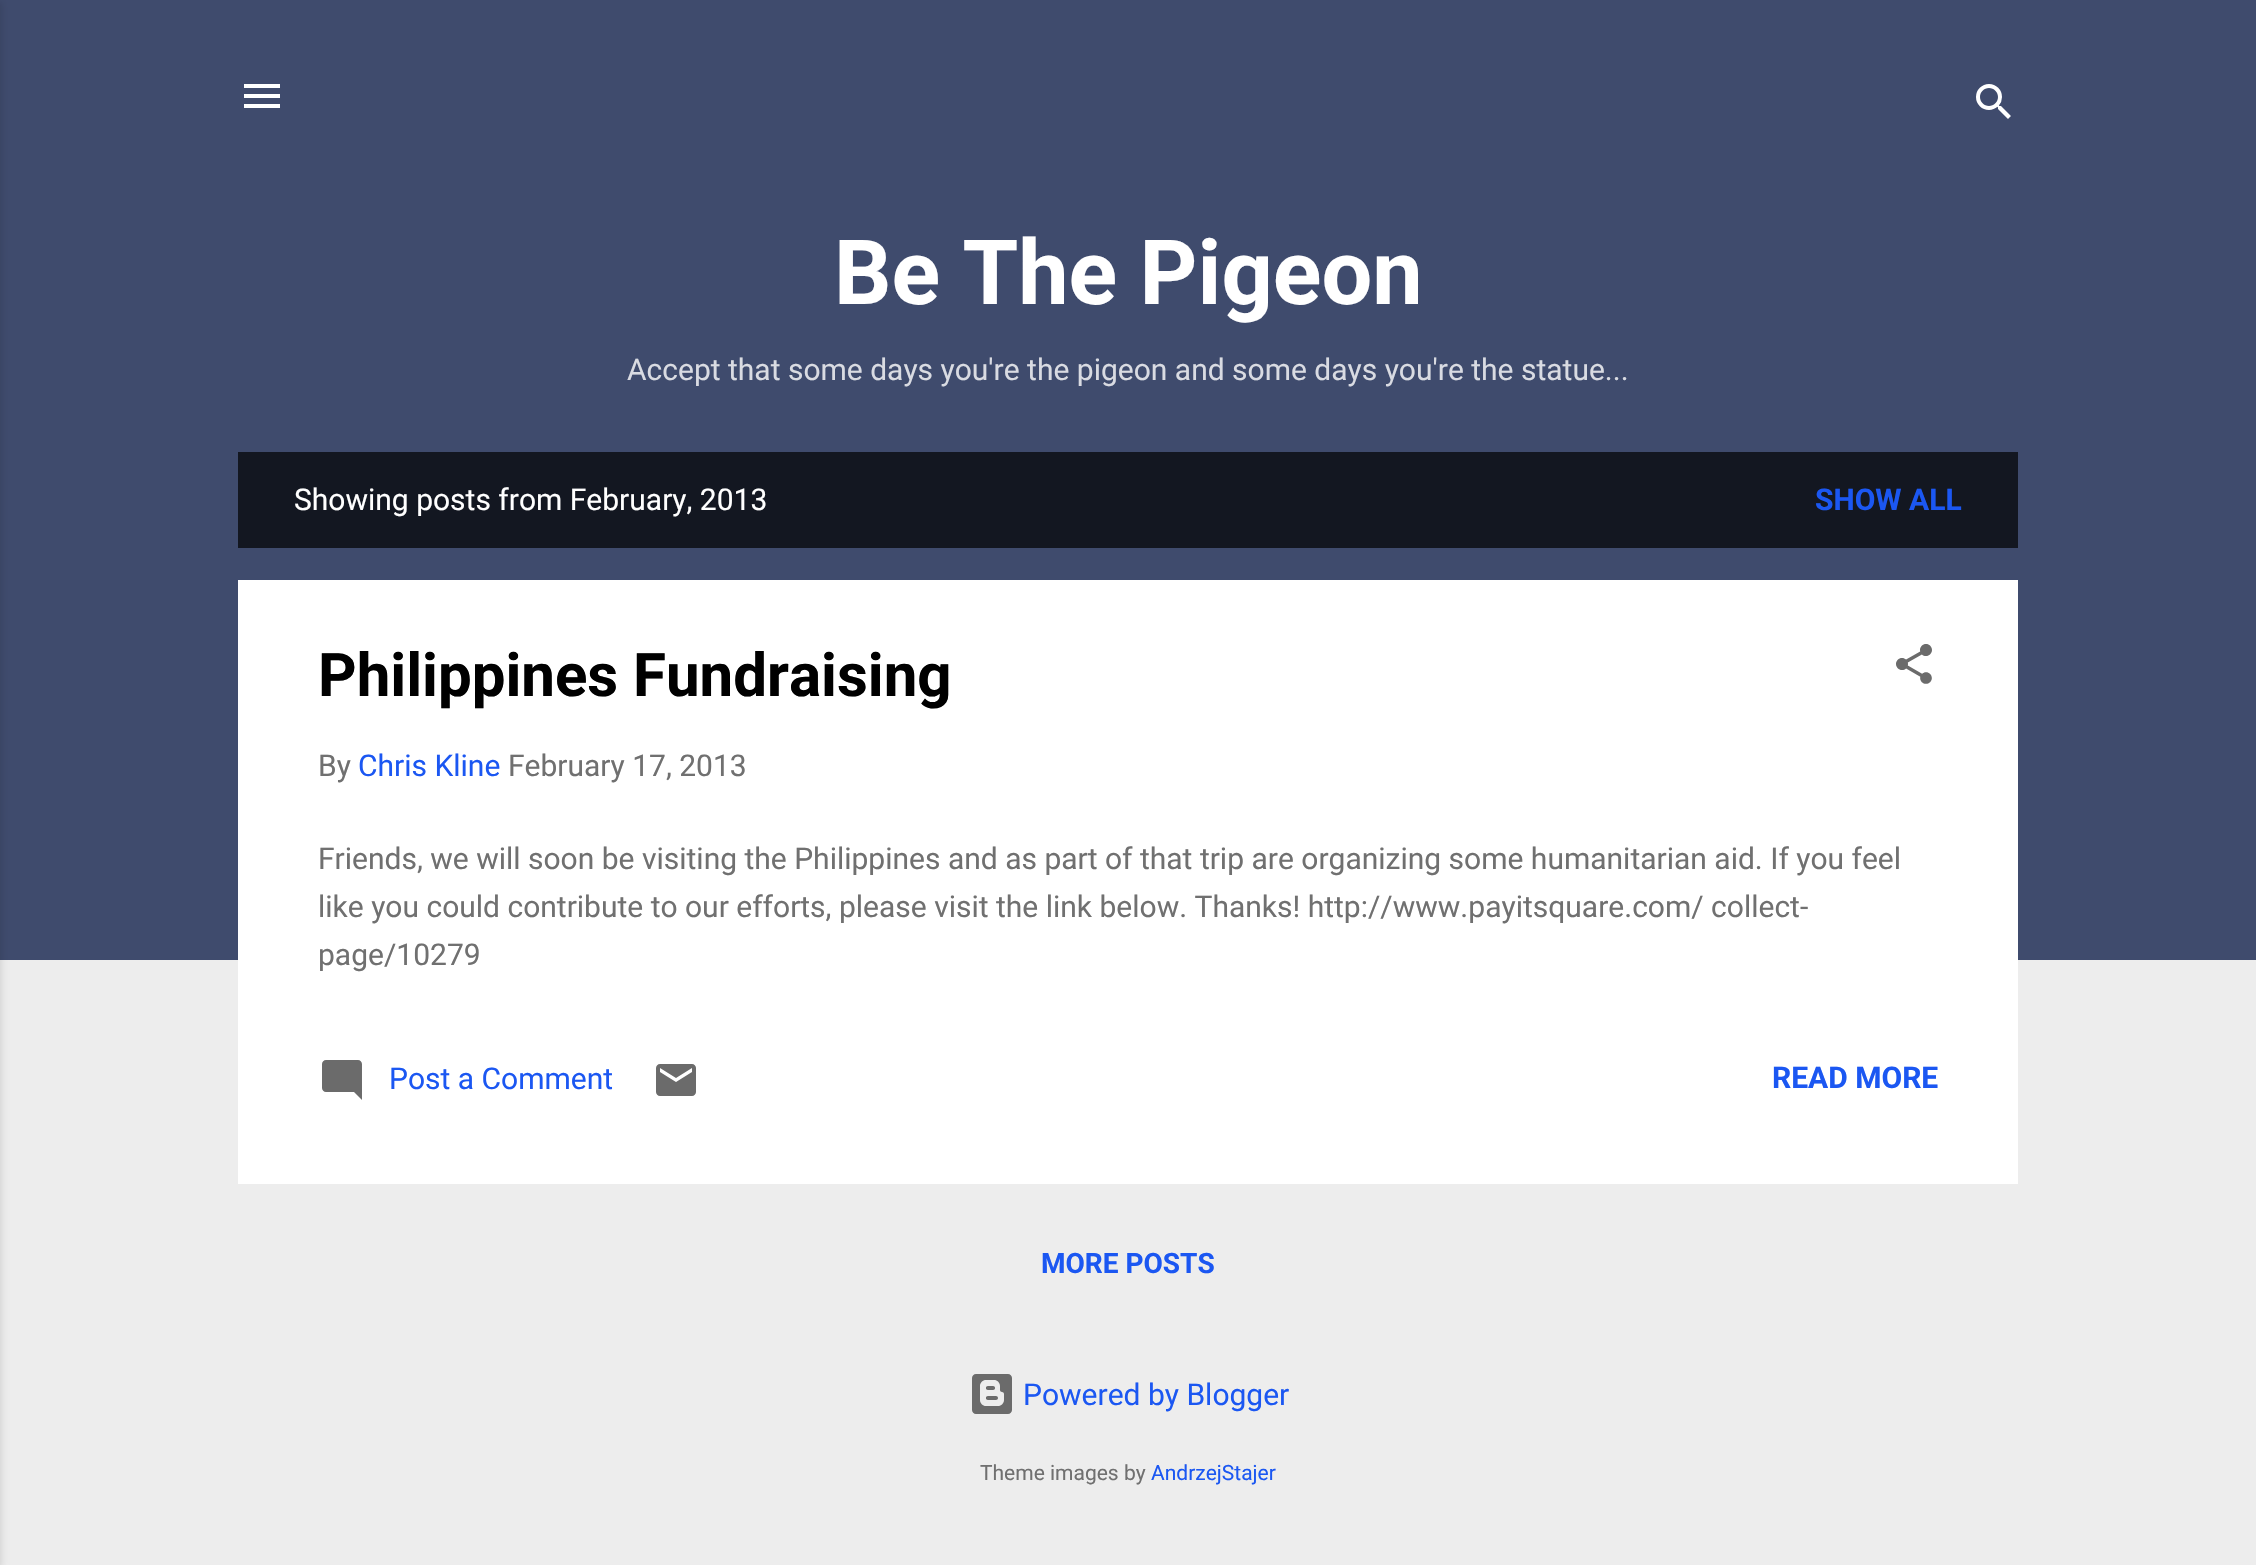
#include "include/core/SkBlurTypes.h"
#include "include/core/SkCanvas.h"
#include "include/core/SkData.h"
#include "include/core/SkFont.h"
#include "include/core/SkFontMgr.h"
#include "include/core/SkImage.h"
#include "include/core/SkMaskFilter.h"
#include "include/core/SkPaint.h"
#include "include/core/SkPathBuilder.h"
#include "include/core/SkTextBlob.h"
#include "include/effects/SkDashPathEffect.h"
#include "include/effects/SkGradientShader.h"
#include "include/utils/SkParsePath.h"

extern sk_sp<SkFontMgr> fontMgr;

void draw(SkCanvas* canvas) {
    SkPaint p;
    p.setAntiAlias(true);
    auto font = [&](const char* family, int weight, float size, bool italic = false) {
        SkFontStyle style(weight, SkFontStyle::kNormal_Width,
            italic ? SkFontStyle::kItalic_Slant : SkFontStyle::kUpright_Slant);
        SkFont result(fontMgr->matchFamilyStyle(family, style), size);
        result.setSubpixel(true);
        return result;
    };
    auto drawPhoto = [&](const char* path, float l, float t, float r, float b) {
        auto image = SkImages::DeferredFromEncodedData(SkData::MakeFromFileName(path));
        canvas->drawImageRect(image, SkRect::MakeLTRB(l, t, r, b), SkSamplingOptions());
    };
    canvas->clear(0xFFEDEDED);
    p.setColor(0xFF3F4B6D);
    canvas->drawRect(SkRect::MakeLTRB(0, 0, 2256, 960), p);
    p.setColor(0x1A000000);
    p.setMaskFilter(SkMaskFilter::MakeBlur(kNormal_SkBlurStyle, 3));
    canvas->drawRect(SkRect::MakeLTRB(-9, 2, 2, 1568), p);
    p.setMaskFilter(nullptr);
    drawPhoto("media/1.png", 244, 84, 280, 108);
    drawPhoto("media/2.png", 1976, 84, 2011, 119);
    auto font1 = font("Roboto", 700, 90);
    p.setColor(0xFFFFFFFF);
    canvas->drawString("Be The Pigeon", 834, 304, font1, p);
    auto font2 = font("Roboto", 400, 30);
    p.setColor(0xFFD9DBE2);
    canvas->drawString("Accept that some days you're the pigeon and some days you're the statue...", 627, 380, font2, p);
    p.setColor(0xFF131721);
    canvas->drawRect(SkRect::MakeLTRB(238, 452, 2018, 548), p);
    p.setColor(0xFFFFFFFF);
    canvas->drawString("Showing posts from February, 2013", 294, 510, font2, p);
    auto font3 = font("Roboto", 700, 30);
    p.setColor(0xFF1B57F2);
    canvas->drawString("SHOW ALL", 1815, 510, font3, p);
    p.setColor(0xFFFFFFFF);
    canvas->drawRect(SkRect::MakeLTRB(238, 580, 2018, 1184), p);
    auto font4 = font("Roboto", 700, 60);
    p.setColor(0xFF000000);
    canvas->drawString("Philippines Fundraising", 318, 696, font4, p);
    drawPhoto("media/3.png", 1896, 644, 1932, 684);
    p.setColor(0xFF707070);
    canvas->drawString("By", 318, 776, font2, p);
    p.setColor(0xFF1B57F2);
    canvas->drawString("Chris Kline", 358, 776, font2, p);
    p.setColor(0xFF707070);
    {
        const struct { const char* s; float x, y; } items[] = {
            {"February 17, 2013", 508, 776},
            {"Friends, we will soon be visiting the Philippines and as part of that trip are organizing some humanitarian aid. If you feel", 318, 869},
            {"like you could contribute to our efforts, please visit the link below. Thanks! http://www.payitsquare.com/ collect-", 318, 917},
            {"page/10279", 318, 965},
        };
        for (auto [s, x, y] : items) {
            canvas->drawString(s, x, y, font2, p);
        }
    }
    drawPhoto("media/4.png", 322, 1060, 362, 1100);
    p.setColor(0xFF1B57F2);
    canvas->drawString("Post a Comment", 389, 1089, font2, p);
    drawPhoto("media/5.png", 656, 1064, 696, 1096);
    canvas->drawString("READ MORE", 1772, 1088, font3, p);
    auto font5 = font("Roboto", 700, 28);
    canvas->drawString("MORE POSTS", 1041, 1273, font5, p);
    drawPhoto("media/6.png", 972, 1374, 1012, 1414);
    canvas->drawString("Powered by Blogger", 1023, 1405, font2, p);
    auto font6 = font("Roboto", 400, 21);
    p.setColor(0xFF707070);
    canvas->drawString("Theme images by", 980, 1480, font6, p);
    p.setColor(0xFF1B57F2);
    canvas->drawString("AndrzejStajer", 1151, 1480, font6, p);
}
